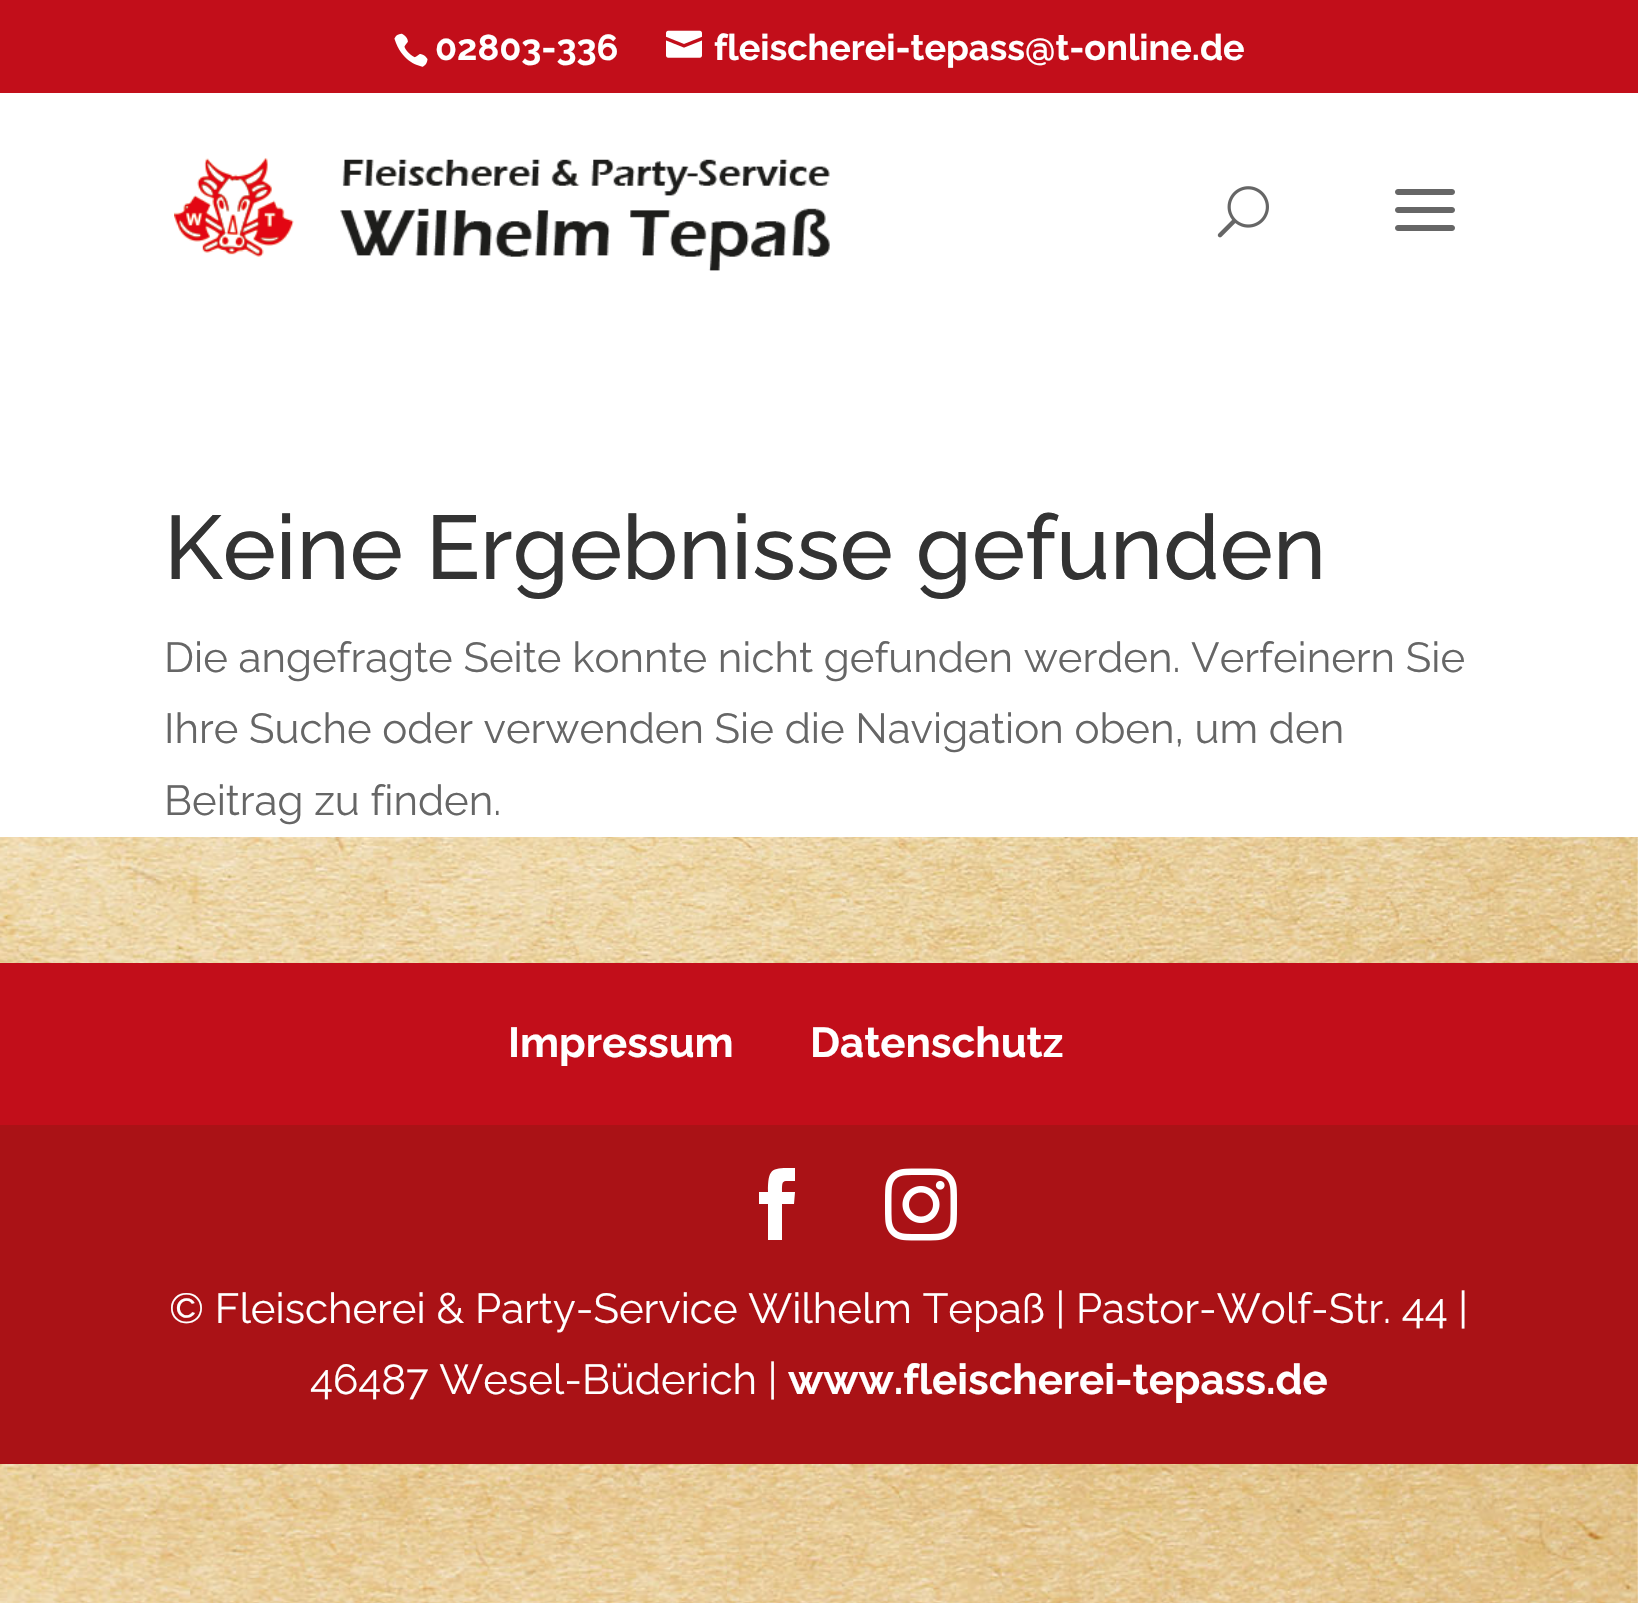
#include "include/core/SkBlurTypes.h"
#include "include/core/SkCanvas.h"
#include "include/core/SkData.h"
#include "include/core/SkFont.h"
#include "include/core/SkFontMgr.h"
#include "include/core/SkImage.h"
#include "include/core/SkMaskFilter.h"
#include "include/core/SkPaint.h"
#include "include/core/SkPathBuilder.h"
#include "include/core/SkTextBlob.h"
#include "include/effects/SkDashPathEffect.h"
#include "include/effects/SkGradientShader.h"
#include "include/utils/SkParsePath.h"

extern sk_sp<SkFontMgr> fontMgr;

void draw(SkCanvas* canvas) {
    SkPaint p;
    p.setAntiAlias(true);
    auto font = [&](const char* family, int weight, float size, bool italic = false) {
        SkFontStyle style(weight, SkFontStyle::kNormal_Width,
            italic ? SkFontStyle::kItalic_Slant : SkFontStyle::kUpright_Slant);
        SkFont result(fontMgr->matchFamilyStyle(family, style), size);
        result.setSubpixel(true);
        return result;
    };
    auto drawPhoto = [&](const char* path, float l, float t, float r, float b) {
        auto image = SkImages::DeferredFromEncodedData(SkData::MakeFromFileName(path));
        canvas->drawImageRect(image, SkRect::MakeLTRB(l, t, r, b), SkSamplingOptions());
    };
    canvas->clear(0xFFFFFFFF);
    drawPhoto("media/1.png", 0, 837, 1638, 1603);
    p.setColor(0xFFC20E1A);
    canvas->drawRect(SkRect::MakeLTRB(0, 0, 1638, 93), p);
    drawPhoto("media/2.png", 394, 33, 428, 67);
    auto font1 = font("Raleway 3", 100, 36);
    p.setColor(0xFFFFFFFF);
    canvas->drawString("02803-336", 435, 60, font1, p);
    drawPhoto("media/3.png", 666, 30, 702, 58);
    canvas->drawString("fleischerei-tepass@t-online.de", 714, 60, font1, p);
    drawPhoto("media/4.png", 174, 157, 830, 271);
    drawPhoto("media/5.png", 1217, 186, 1269, 238);
    drawPhoto("media/6.png", 1395, 189, 1455, 231);
    auto font2 = font("Raleway", 100, 90);
    p.setColor(0xFF333333);
    canvas->drawString("Keine Ergebnisse gefunden", 164, 579, font2, p);
    auto font3 = font("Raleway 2", 100, 42);
    p.setColor(0xFF666666);
    {
        const struct { const char* s; float x, y; } items[] = {
            {"Die angefragte Seite konnte nicht gefunden werden. Verfeinern Sie", 164, 672},
            {"Ihre Suche oder verwenden Sie die Navigation oben, um den", 164, 743},
            {"Beitrag zu finden.", 164, 815},
        };
        for (auto [s, x, y] : items) {
            canvas->drawString(s, x, y, font3, p);
        }
    }
    p.setColor(0xFFC20E1A);
    canvas->drawRect(SkRect::MakeLTRB(0, 963, 1638, 1125), p);
    auto font4 = font("Raleway 3", 100, 42);
    p.setColor(0xFFFFFFFF);
    canvas->drawString("Impressum", 508, 1057, font4, p);
    canvas->drawString("Datenschutz", 810, 1057, font4, p);
    p.setColor(0xFFAA1216);
    canvas->drawRect(SkRect::MakeLTRB(0, 1125, 1638, 1464), p);
    p.setColor(0xFFFFFFFF);
    canvas->drawPath(SkPathBuilder().moveTo(768, 1240).lineTo(782, 1240).lineTo(782, 1204).lineTo(794, 1204).lineTo(795, 1192).lineTo(782, 1192).cubicTo(782, 1179, 782, 1181, 795, 1181).lineTo(795, 1168).cubicTo(772, 1168, 768, 1167, 768, 1192).lineTo(759, 1192).lineTo(759, 1204).lineTo(768, 1204).close().detach(), p);
    drawPhoto("media/7.png", 885, 1168, 957, 1241);
    canvas->drawString("© Fleischerei & Party-Service Wilhelm Tepaß | Pastor-Wolf-Str. 44 |", 169, 1323, font3, p);
    canvas->drawString("46487 Wesel-Büderich |", 310, 1394, font3, p);
    canvas->drawString("www.fleischerei-tepass.de", 788, 1394, font4, p);
}
